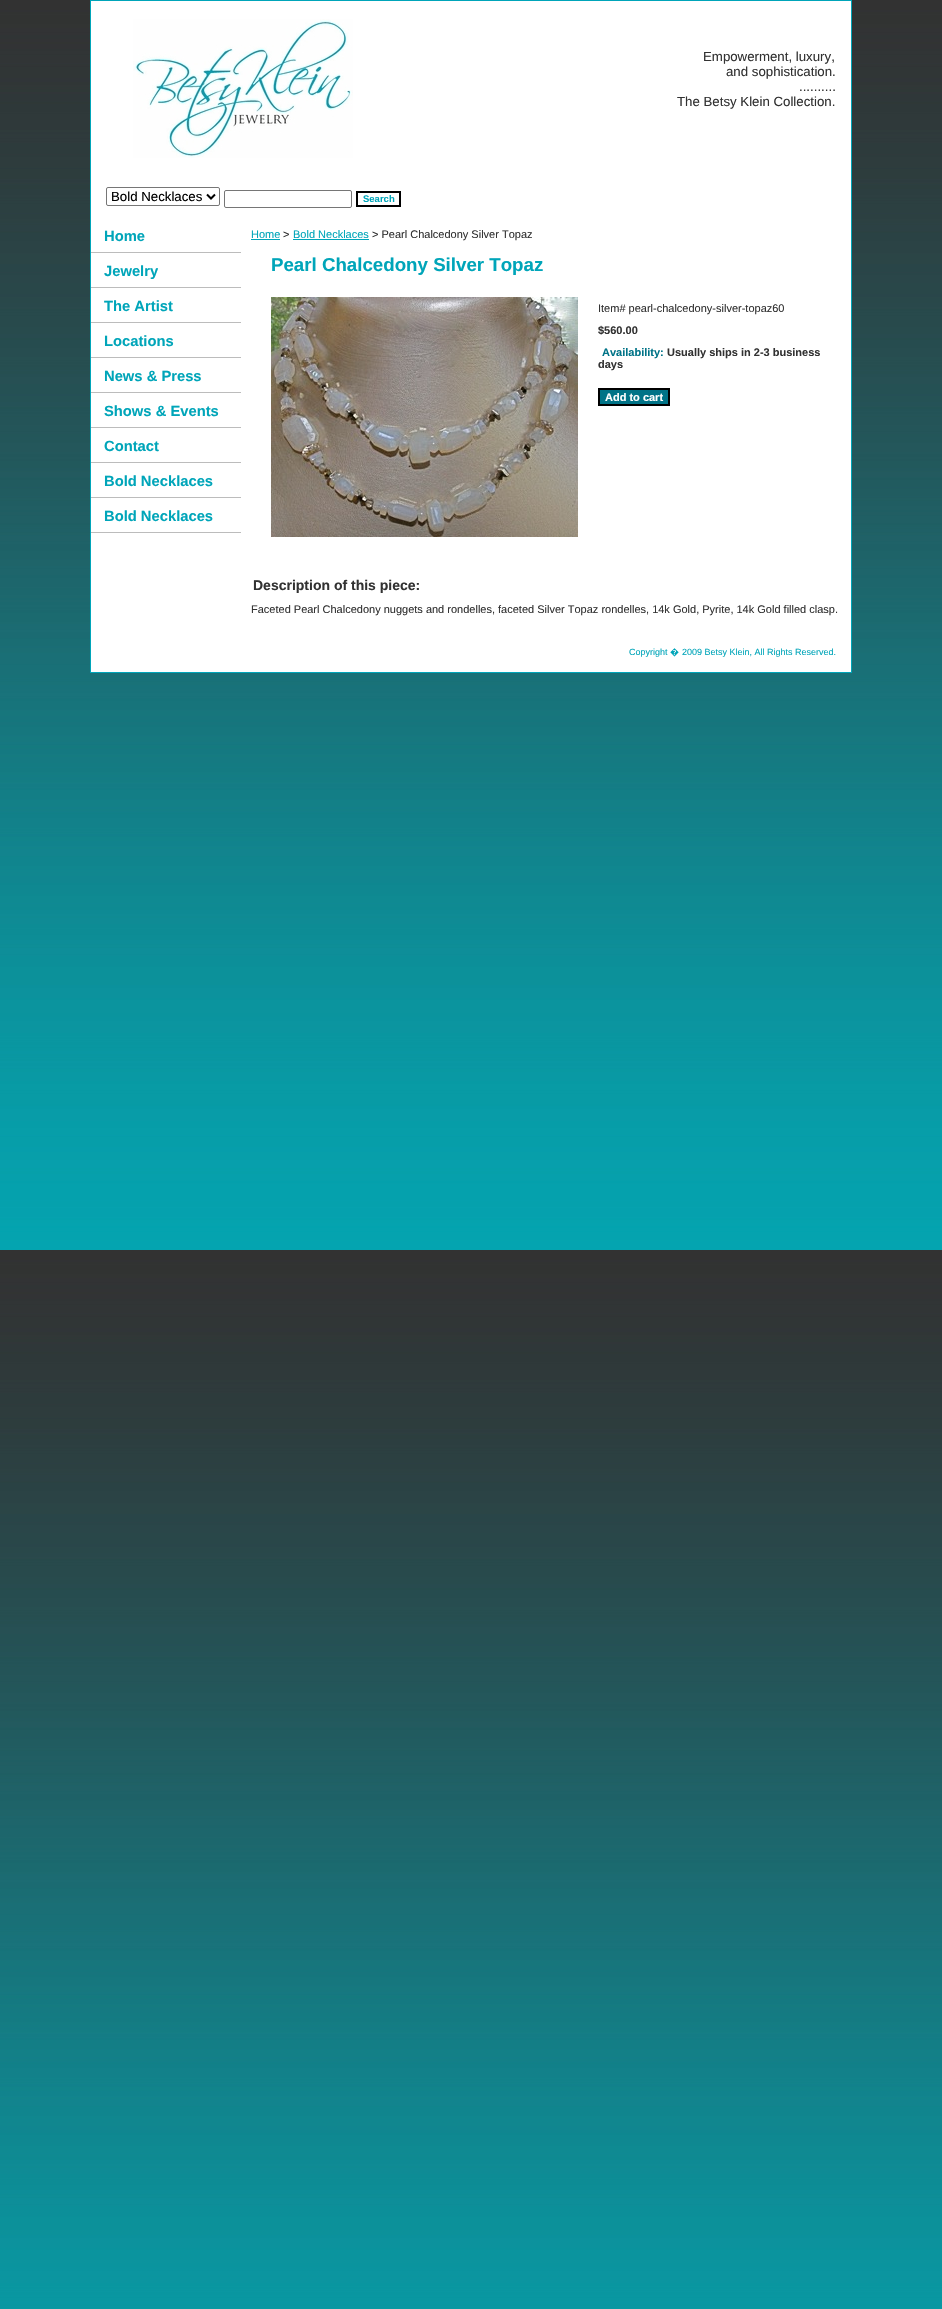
#include "include/core/SkBlurTypes.h"
#include "include/core/SkCanvas.h"
#include "include/core/SkData.h"
#include "include/core/SkFont.h"
#include "include/core/SkFontMgr.h"
#include "include/core/SkImage.h"
#include "include/core/SkMaskFilter.h"
#include "include/core/SkPaint.h"
#include "include/core/SkPathBuilder.h"
#include "include/core/SkTextBlob.h"
#include "include/effects/SkDashPathEffect.h"
#include "include/effects/SkGradientShader.h"
#include "include/utils/SkParsePath.h"

extern sk_sp<SkFontMgr> fontMgr;

void draw(SkCanvas* canvas) {
    SkPaint p;
    p.setAntiAlias(true);
    auto font = [&](const char* family, int weight, float size, bool italic = false) {
        SkFontStyle style(weight, SkFontStyle::kNormal_Width,
            italic ? SkFontStyle::kItalic_Slant : SkFontStyle::kUpright_Slant);
        SkFont result(fontMgr->matchFamilyStyle(family, style), size);
        result.setSubpixel(true);
        return result;
    };
    auto drawPhoto = [&](const char* path, float l, float t, float r, float b) {
        auto image = SkImages::DeferredFromEncodedData(SkData::MakeFromFileName(path));
        canvas->drawImageRect(image, SkRect::MakeLTRB(l, t, r, b), SkSamplingOptions());
    };
    canvas->clear(0xFFFFFFFF);
    drawPhoto("media/1.png", 0, 0, 942, 2309);
    p.setColor(0xFFFFFFFF);
    canvas->drawRect(SkRect::MakeLTRB(90.5f, 0.5f, 851.5f, 672.5f), p);
    p.setStyle(SkPaint::kStroke_Style);
    p.setStrokeWidth(1);
    p.setColor(0xFF00A5B9);
    canvas->drawRect(SkRect::MakeLTRB(90.5f, 0.5f, 851.5f, 672.5f), p);
    drawPhoto("media/2.png", 133, 19, 353, 158);
    auto font1 = font("Liberation Sans", 400, 13.25f);
    p.setStyle(SkPaint::kFill_Style);
    p.setColor(0xFF323232);
    {
        const struct { const char* s; float x, y; } items[] = {
            {"Empowerment, luxury,", 703, 61},
            {"and sophistication.", 726, 76},
            {"..........", 799, 91},
            {"The Betsy Klein Collection.", 677, 106},
        };
        for (auto [s, x, y] : items) {
            canvas->drawString(s, x, y, font1, p);
        }
    }
    p.setStyle(SkPaint::kStroke_Style);
    p.setColor(0xFF767676);
    canvas->drawRoundRect(SkRect::MakeLTRB(106.5f, 187.5f, 219.5f, 205.5f), 1.5f, 1.5f, p);
    p.setStrokeWidth(2);
    p.setColor(0xFF000000);
    canvas->drawPath(SkPathBuilder().moveTo(207, 194.5f).lineTo(211, 198.5f).lineTo(215, 194.5f).detach(), p);
    p.setStyle(SkPaint::kFill_Style);
    canvas->drawString("Bold Necklaces", 111, 201, font1, p);
    p.setStyle(SkPaint::kStroke_Style);
    p.setStrokeWidth(1);
    p.setColor(0xFF767676);
    canvas->drawRoundRect(SkRect::MakeLTRB(224.5f, 190.5f, 351.5f, 207.5f), 1.5f, 1.5f, p);
    p.setStrokeWidth(2);
    p.setColor(0xFF000000);
    canvas->drawRect(SkRect::MakeLTRB(357, 192, 400, 206), p);
    auto font2 = font("Liberation Sans", 700, 9.5f);
    p.setStyle(SkPaint::kFill_Style);
    p.setColor(0xFF00A5B9);
    canvas->drawString("Search", 363, 202, font2, p);
    p.setColor(0xFFBCBCBC);
    canvas->drawRect(SkRect::MakeLTRB(91, 252, 241, 253), p);
    auto font3 = font("Liberation Sans", 700, 14.75f);
    p.setColor(0xFF00A5B9);
    canvas->drawString("Home", 104, 241, font3, p);
    p.setColor(0xFFBCBCBC);
    canvas->drawRect(SkRect::MakeLTRB(91, 287, 241, 288), p);
    p.setColor(0xFF00A5B9);
    canvas->drawString("Jewelry", 104, 276, font3, p);
    p.setColor(0xFFBCBCBC);
    canvas->drawRect(SkRect::MakeLTRB(91, 322, 241, 323), p);
    p.setColor(0xFF00A5B9);
    canvas->drawString("The Artist", 104, 311, font3, p);
    p.setColor(0xFFBCBCBC);
    canvas->drawRect(SkRect::MakeLTRB(91, 357, 241, 358), p);
    p.setColor(0xFF00A5B9);
    canvas->drawString("Locations", 104, 346, font3, p);
    p.setColor(0xFFBCBCBC);
    canvas->drawRect(SkRect::MakeLTRB(91, 392, 241, 393), p);
    p.setColor(0xFF00A5B9);
    canvas->drawString("News & Press", 104, 381, font3, p);
    p.setColor(0xFFBCBCBC);
    canvas->drawRect(SkRect::MakeLTRB(91, 427, 241, 428), p);
    p.setColor(0xFF00A5B9);
    canvas->drawString("Shows & Events", 104, 416, font3, p);
    p.setColor(0xFFBCBCBC);
    canvas->drawRect(SkRect::MakeLTRB(91, 462, 241, 463), p);
    p.setColor(0xFF00A5B9);
    canvas->drawString("Contact", 104, 451, font3, p);
    p.setColor(0xFFBCBCBC);
    canvas->drawRect(SkRect::MakeLTRB(91, 497, 241, 498), p);
    p.setColor(0xFF00A5B9);
    canvas->drawString("Bold Necklaces", 104, 486, font3, p);
    p.setColor(0xFFBCBCBC);
    canvas->drawRect(SkRect::MakeLTRB(91, 532, 241, 533), p);
    p.setColor(0xFF00A5B9);
    canvas->drawString("Bold Necklaces", 104, 521, font3, p);
    auto font4 = font("Liberation Sans", 400, 11);
    canvas->drawString("Home", 251, 238, font4, p);
    canvas->drawRect(SkRect::MakeLTRB(251, 239, 280, 240), p);
    p.setColor(0xFF323232);
    canvas->drawString(">", 283, 238, font4, p);
    p.setColor(0xFF00A5B9);
    canvas->drawString("Bold Necklaces", 293, 238, font4, p);
    canvas->drawRect(SkRect::MakeLTRB(293, 239, 369, 240), p);
    p.setColor(0xFF323232);
    canvas->drawString("> Pearl Chalcedony Silver Topaz", 372, 238, font4, p);
    auto font5 = font("Liberation Sans", 700, 18.7f);
    p.setColor(0xFF00A5B9);
    canvas->drawString("Pearl Chalcedony Silver Topaz", 271, 271, font5, p);
    drawPhoto("media/3.png", 271, 297, 578, 537);
    p.setColor(0xFF323232);
    canvas->drawString("Item# pearl-chalcedony-silver-topaz60", 598, 312, font4, p);
    auto font6 = font("Liberation Sans", 700, 11);
    canvas->drawString("$560.00", 598, 334, font6, p);
    p.setColor(0xFF007387);
    canvas->drawString("Availability:", 602, 356, font6, p);
    p.setColor(0xFF323232);
    canvas->drawString("Usually ships in 2-3 business", 667, 356, font6, p);
    canvas->drawString("days", 598, 368, font6, p);
    p.setColor(0xFF007387);
    canvas->drawRect(SkRect::MakeLTRB(599, 389, 669, 405), p);
    p.setStyle(SkPaint::kStroke_Style);
    p.setColor(0xFF000000);
    canvas->drawRect(SkRect::MakeLTRB(599, 389, 669, 405), p);
    p.setStyle(SkPaint::kFill_Style);
    p.setColor(0xFFFFFFFF);
    canvas->drawString("Add to cart", 605, 401, font6, p);
    auto font7 = font("Liberation Sans", 700, 14);
    p.setColor(0xFF323232);
    canvas->drawString("Description of this piece:", 253, 590, font7, p);
    canvas->drawString("Faceted Pearl Chalcedony nuggets and rondelles, faceted Silver Topaz rondelles, 14k Gold, Pyrite, 14k Gold filled clasp.", 251, 613, font4, p);
    auto font8 = font("Liberation Sans", 400, 9);
    p.setColor(0xFF00A5B9);
    canvas->drawString("Copyright", 629, 655, font8, p);
    auto font9 = font("Noto Sans", 400, 9);
    canvas->drawString("�", 670, 655, font9, p);
    canvas->drawString("2009 Betsy Klein, All Rights Reserved.", 682, 655, font8, p);
}
